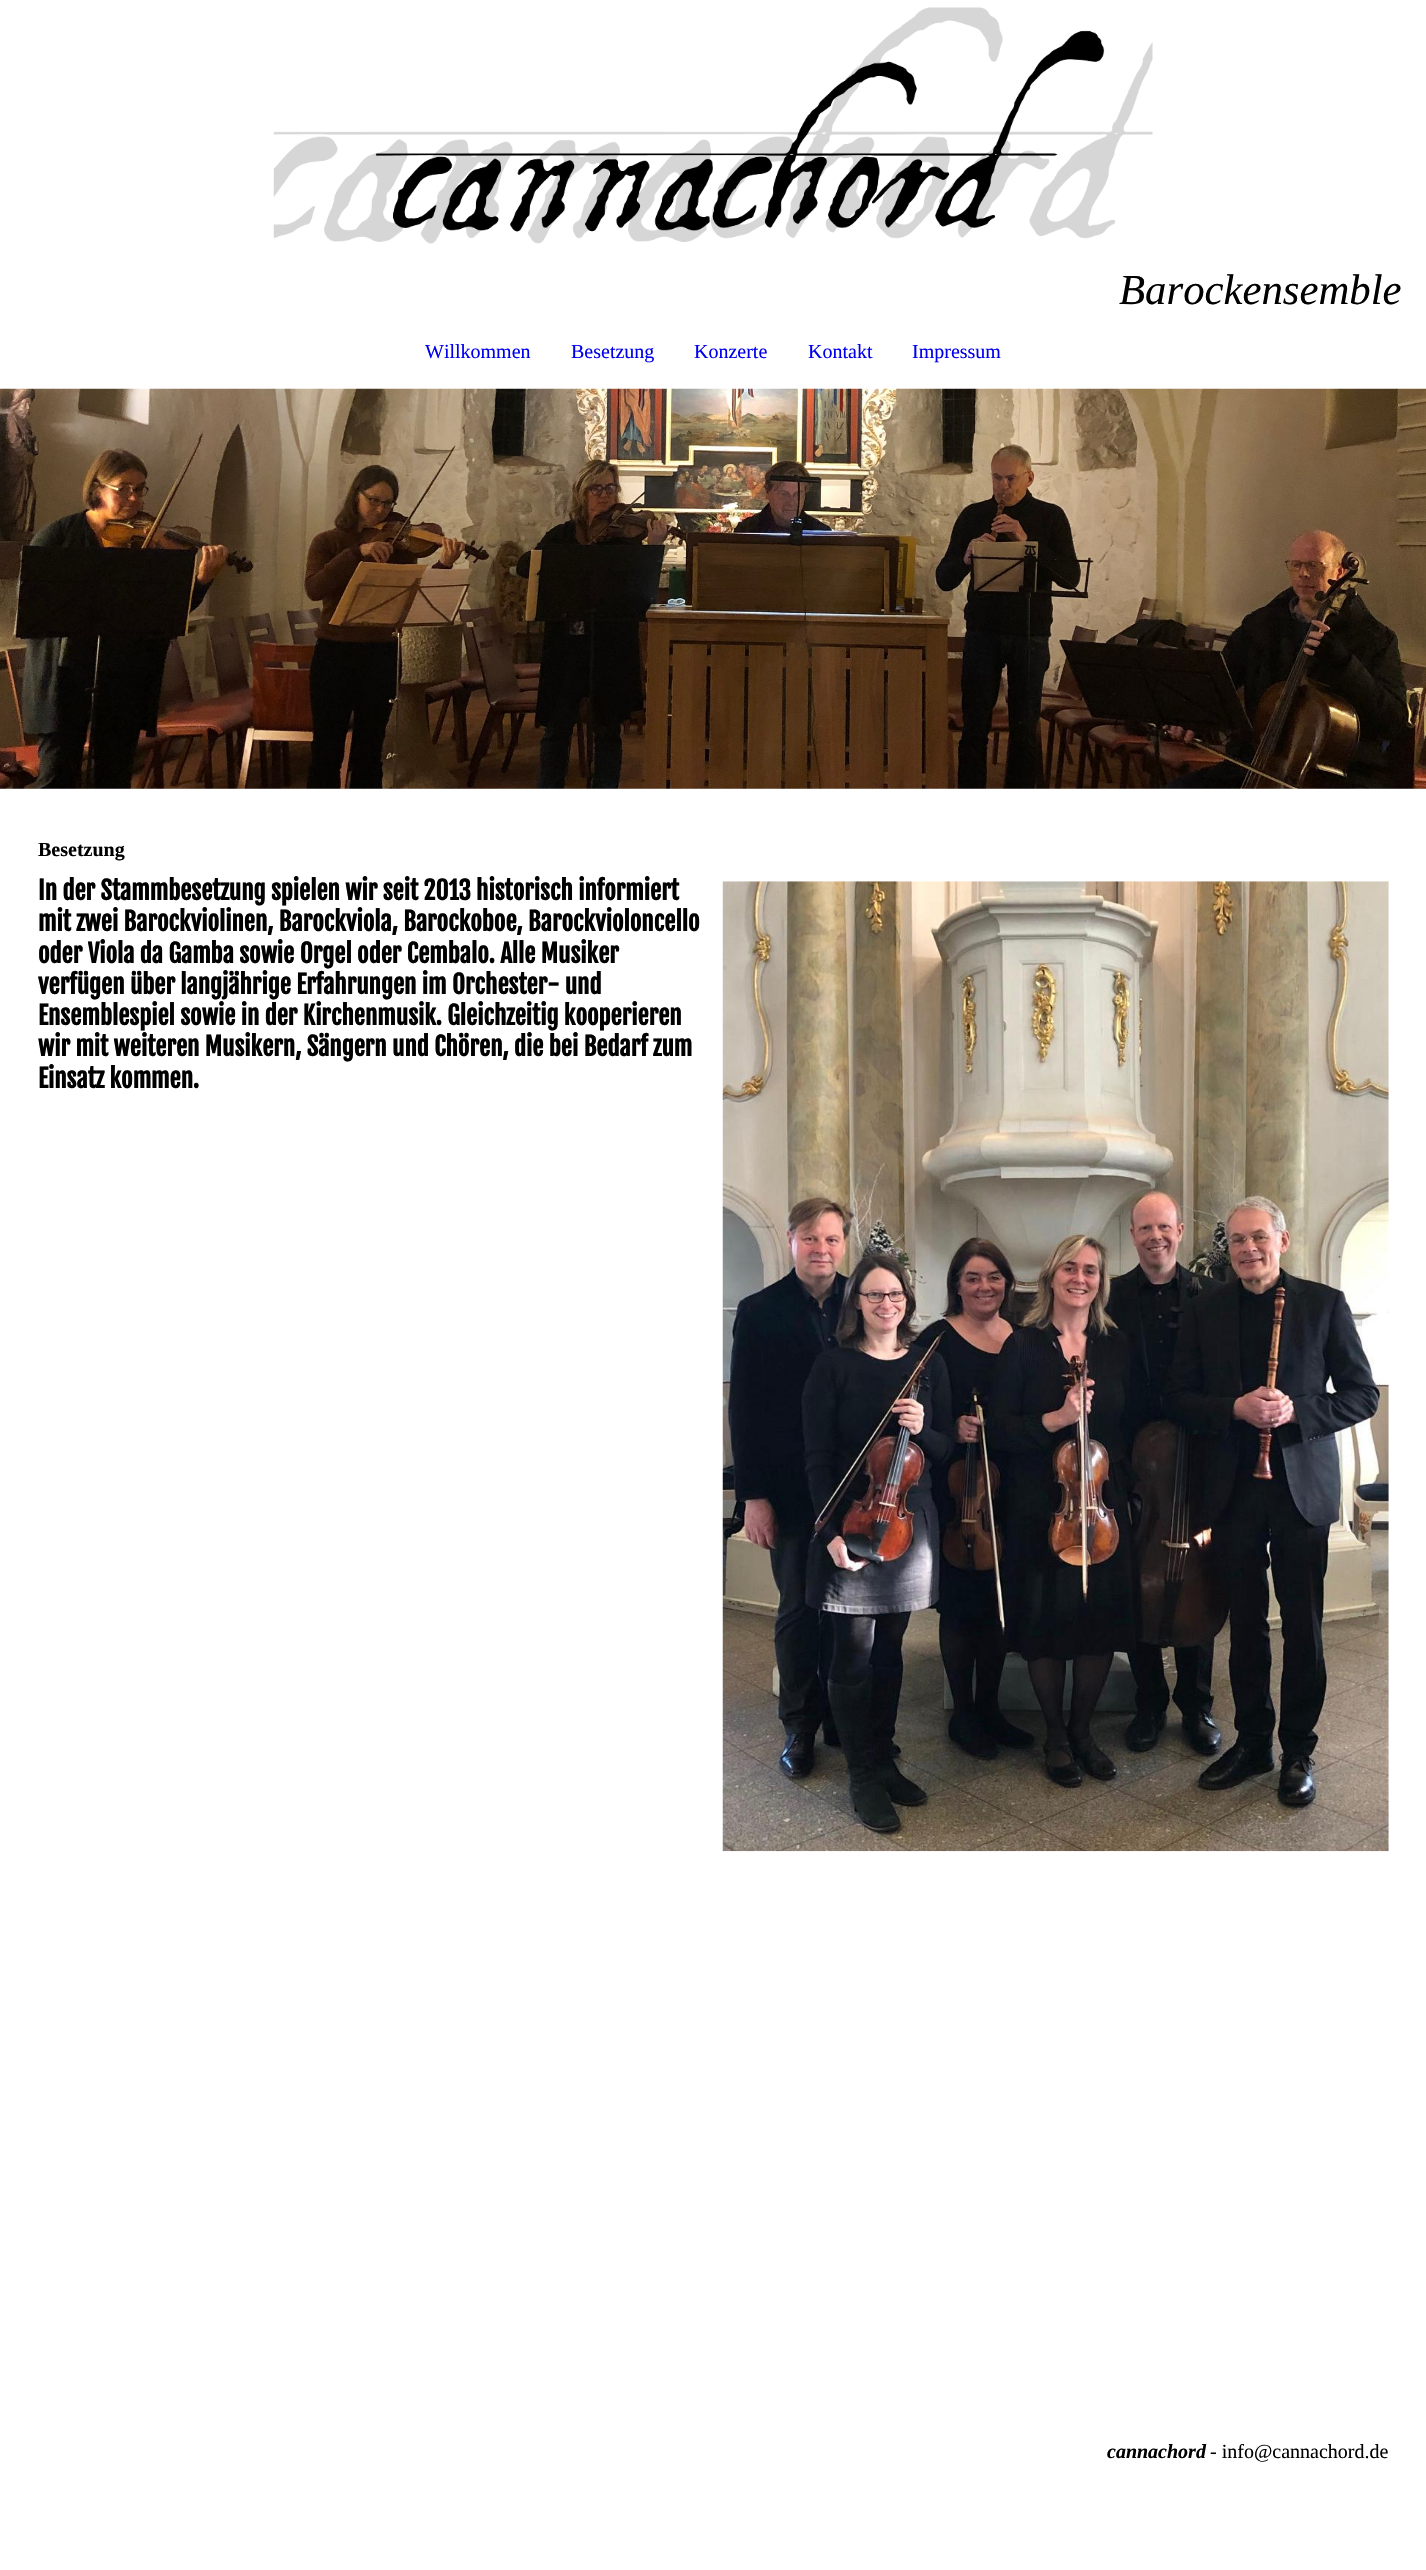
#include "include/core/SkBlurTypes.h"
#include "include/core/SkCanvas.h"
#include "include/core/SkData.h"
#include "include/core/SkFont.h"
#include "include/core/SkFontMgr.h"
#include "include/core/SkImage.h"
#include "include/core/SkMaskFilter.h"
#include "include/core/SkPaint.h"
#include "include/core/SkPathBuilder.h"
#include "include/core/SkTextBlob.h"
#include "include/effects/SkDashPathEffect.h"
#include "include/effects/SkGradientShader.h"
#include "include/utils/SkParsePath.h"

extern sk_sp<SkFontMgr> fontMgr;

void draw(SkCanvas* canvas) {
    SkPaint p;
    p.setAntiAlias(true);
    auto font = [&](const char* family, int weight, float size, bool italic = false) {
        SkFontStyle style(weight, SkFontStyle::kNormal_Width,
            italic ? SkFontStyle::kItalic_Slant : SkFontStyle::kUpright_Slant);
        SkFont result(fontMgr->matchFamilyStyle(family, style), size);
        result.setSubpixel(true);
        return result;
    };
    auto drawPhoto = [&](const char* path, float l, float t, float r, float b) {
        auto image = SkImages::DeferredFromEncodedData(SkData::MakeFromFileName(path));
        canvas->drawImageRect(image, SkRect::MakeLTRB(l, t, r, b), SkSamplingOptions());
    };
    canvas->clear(0xFFFFFFFF);
    drawPhoto("media/1.png", 273, 7, 1153, 244);
    auto font1 = font("Liberation Serif", 400, 42.75f, true);
    p.setColor(0xFF000000);
    canvas->drawString("Barockensemble", 1119, 304, font1, p);
    auto font2 = font("Liberation Serif", 400, 20);
    p.setColor(0xFF0000EE);
    {
        const struct { const char* s; float x, y; } items[] = {
            {"Willkommen", 425, 358},
            {"Besetzung", 571, 358},
            {"Konzerte", 694, 358},
            {"Kontakt", 808, 358},
            {"Impressum", 912, 358},
        };
        for (auto [s, x, y] : items) {
            canvas->drawString(s, x, y, font2, p);
        }
    }
    drawPhoto("media/2.png", 0, 388, 1426, 789);
    auto font3 = font("Liberation Serif", 700, 20);
    p.setColor(0xFF000000);
    canvas->drawString("Besetzung", 38, 856, font3, p);
    auto font4 = font("Fjalla One", 700, 25);
    {
        const struct { const char* s; float x, y; } items[] = {
            {"In der Stammbesetzung spielen wir seit 2013 historisch informiert", 38, 900},
            {"mit zwei Barockviolinen, Barockviola, Barockoboe, Barockvioloncello", 38, 931},
            {"oder Viola da Gamba sowie Orgel oder Cembalo. Alle Musiker", 38, 963},
            {"verfügen über langjährige Erfahrungen im Orchester- und", 38, 994},
            {"Ensemblespiel sowie in der Kirchenmusik. Gleichzeitig kooperieren", 38, 1025},
            {"wir mit weiteren Musikern, Sängern und Chören, die bei Bedarf zum", 38, 1056},
            {"Einsatz kommen.", 38, 1088},
        };
        for (auto [s, x, y] : items) {
            canvas->drawString(s, x, y, font4, p);
        }
    }
    drawPhoto("media/3.png", 722, 881, 1389, 1852);
    auto font5 = font("Liberation Serif", 700, 20, true);
    canvas->drawString("cannachord", 1107, 2458, font5, p);
    canvas->drawString("- info@cannachord.de", 1210, 2458, font2, p);
}
